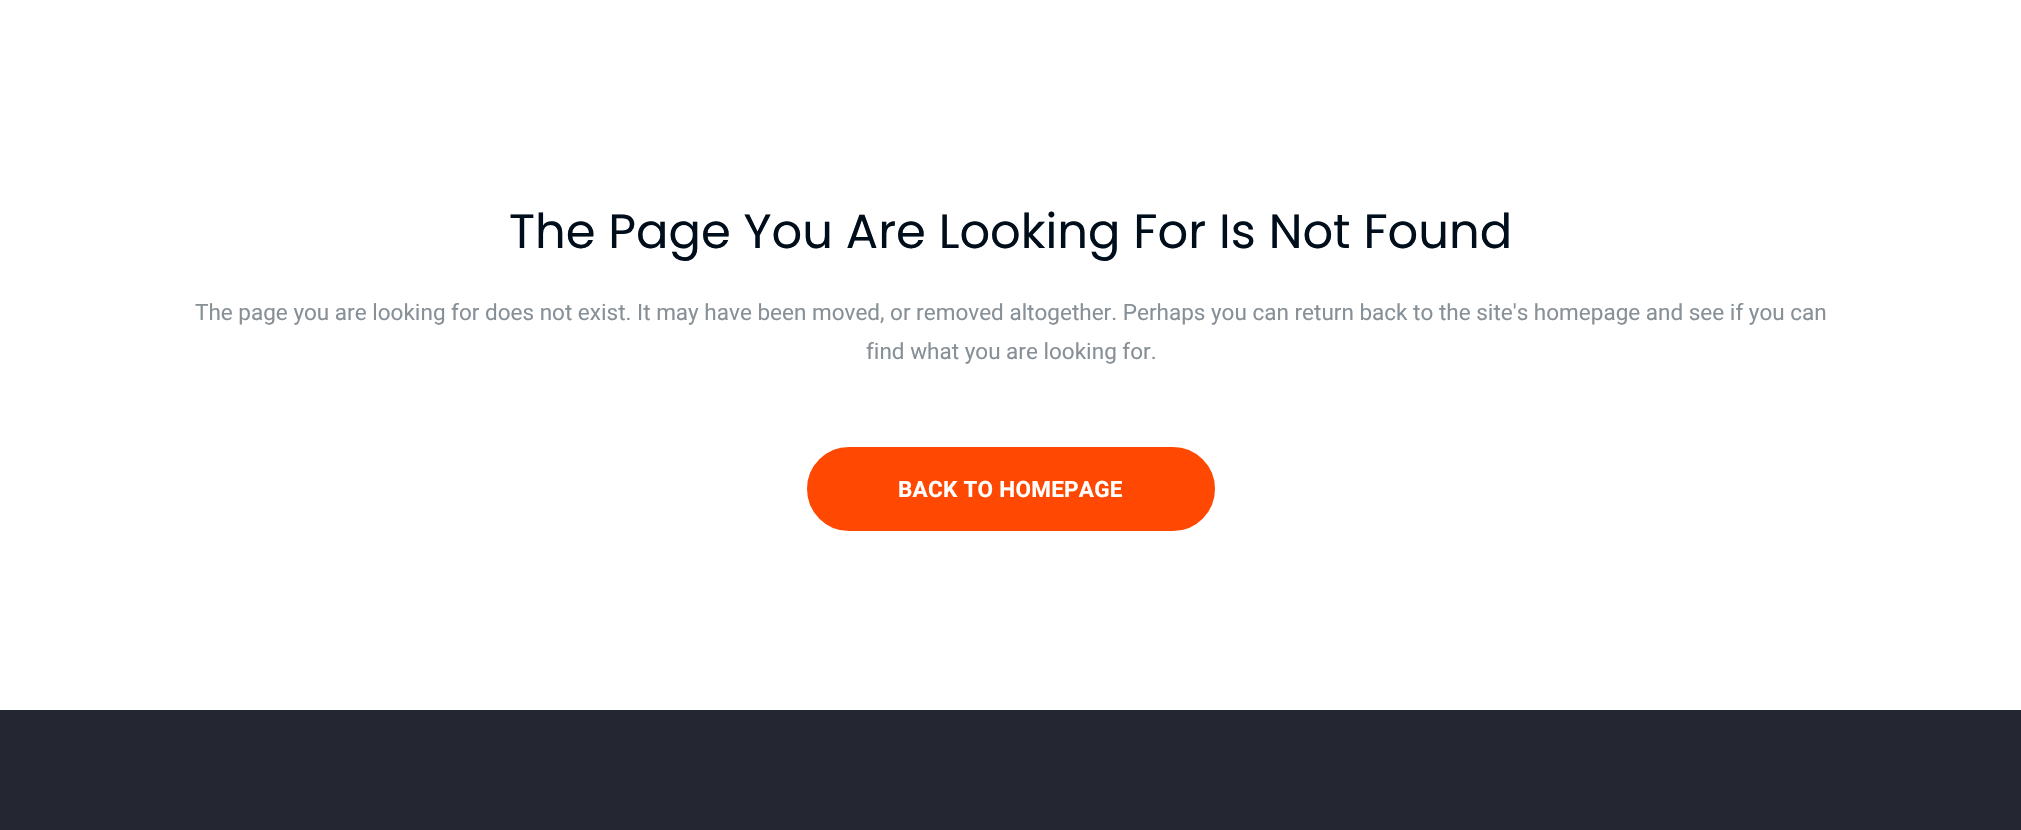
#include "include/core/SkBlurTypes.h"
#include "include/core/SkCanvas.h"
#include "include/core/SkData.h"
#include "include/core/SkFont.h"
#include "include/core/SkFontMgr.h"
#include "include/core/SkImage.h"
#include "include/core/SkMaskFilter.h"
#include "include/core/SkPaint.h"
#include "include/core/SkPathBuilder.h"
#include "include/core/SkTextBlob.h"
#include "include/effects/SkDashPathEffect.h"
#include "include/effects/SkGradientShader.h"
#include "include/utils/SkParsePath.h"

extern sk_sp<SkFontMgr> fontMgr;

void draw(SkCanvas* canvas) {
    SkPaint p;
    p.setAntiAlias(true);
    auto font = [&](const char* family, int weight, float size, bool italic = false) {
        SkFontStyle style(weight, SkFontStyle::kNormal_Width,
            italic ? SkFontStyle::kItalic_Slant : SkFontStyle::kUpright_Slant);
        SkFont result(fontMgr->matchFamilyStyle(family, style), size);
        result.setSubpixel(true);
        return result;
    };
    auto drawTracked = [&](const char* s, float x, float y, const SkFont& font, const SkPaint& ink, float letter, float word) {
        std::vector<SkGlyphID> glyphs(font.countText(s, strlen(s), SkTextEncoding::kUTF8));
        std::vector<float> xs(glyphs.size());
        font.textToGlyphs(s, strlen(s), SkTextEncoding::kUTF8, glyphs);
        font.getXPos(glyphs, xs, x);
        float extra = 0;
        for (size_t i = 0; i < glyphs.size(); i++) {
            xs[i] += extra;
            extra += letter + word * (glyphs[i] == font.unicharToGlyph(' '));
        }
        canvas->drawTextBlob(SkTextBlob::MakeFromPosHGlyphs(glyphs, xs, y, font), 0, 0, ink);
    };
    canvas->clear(0xFFFFFFFF);
    auto font1 = font("Poppins", 400, 48);
    p.setColor(0xFF000E1C);
    canvas->drawString("The Page You Are Looking For Is Not Found", 509, 248, font1, p);
    auto font2 = font("Heebo", 400, 22.5f);
    p.setColor(0xFF879097);
    canvas->drawString("The page you are looking for does not exist. It may have been moved, or removed altogether. Perhaps you can return back to the site's homepage and see if you can", 195, 320, font2, p);
    canvas->drawString("find what you are looking for.", 866, 359, font2, p);
    p.setColor(0xFFFF4902);
    canvas->drawRoundRect(SkRect::MakeLTRB(808, 448, 1214, 530), 41, 41, p);
    p.setStyle(SkPaint::kStroke_Style);
    p.setStrokeWidth(2);
    canvas->drawRoundRect(SkRect::MakeLTRB(808, 448, 1214, 530), 41, 41, p);
    auto font3 = font("Heebo", 700, 22.5f);
    p.setStyle(SkPaint::kFill_Style);
    p.setColor(0xFFFFFFFF);
    drawTracked("BACK TO HOMEPAGE", 898, 497, font3, p, 0.25f, 0);
    p.setColor(0xFF242632);
    canvas->drawRect(SkRect::MakeLTRB(0, 710, 2021, 830), p);
}
